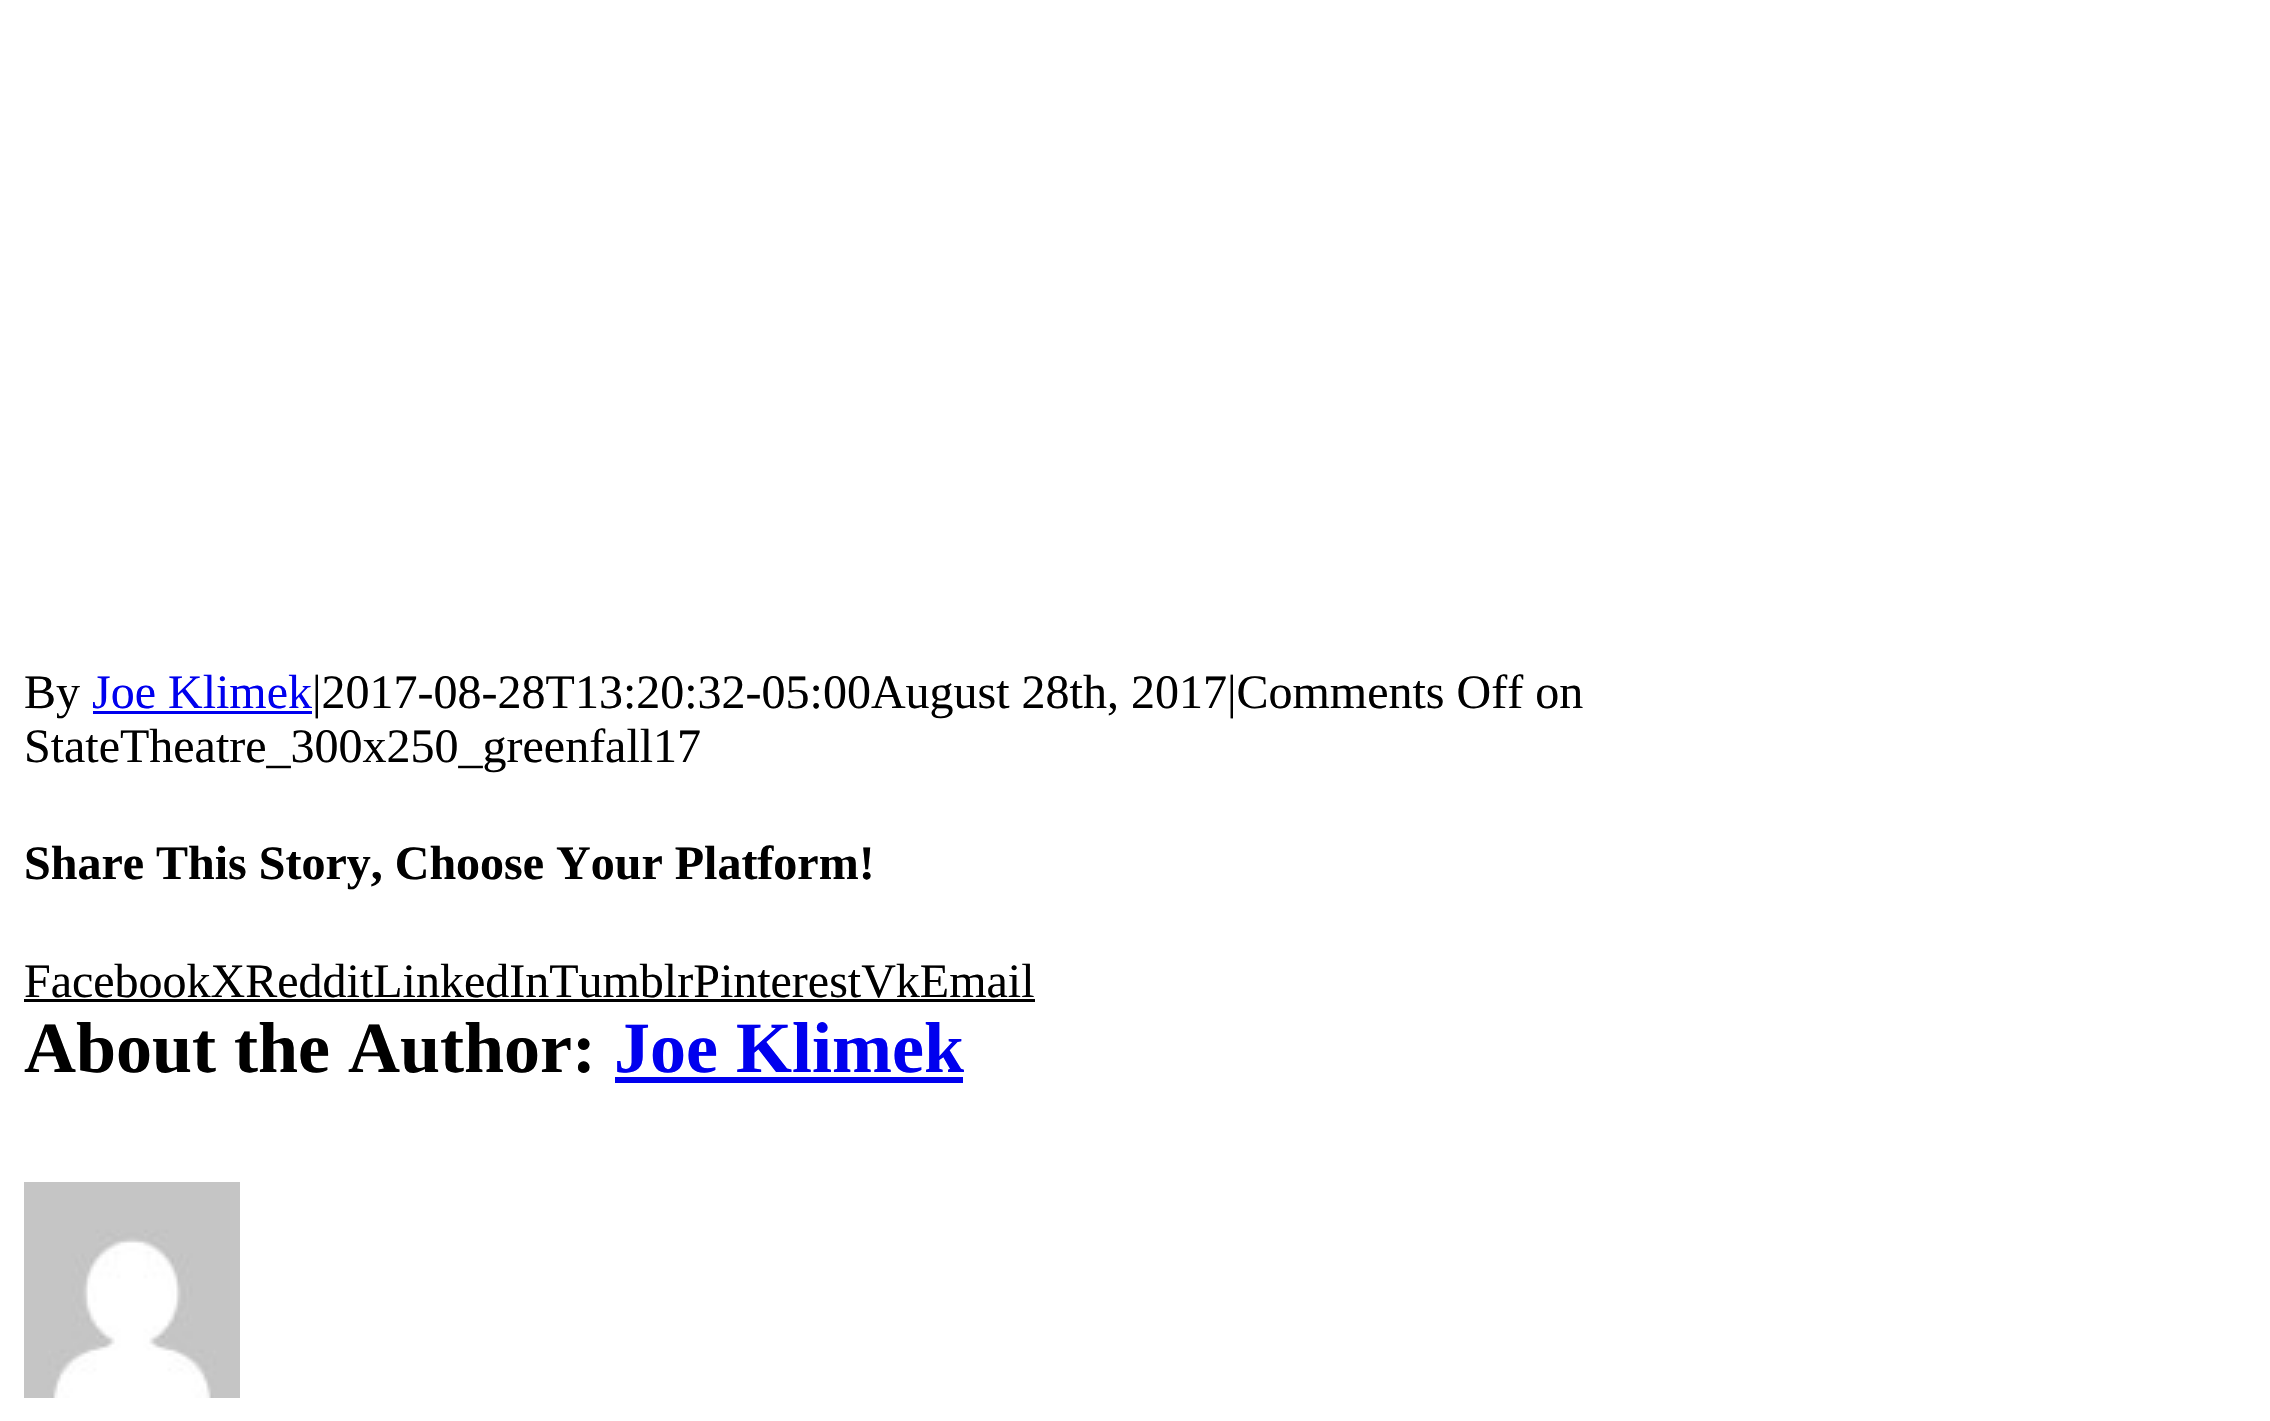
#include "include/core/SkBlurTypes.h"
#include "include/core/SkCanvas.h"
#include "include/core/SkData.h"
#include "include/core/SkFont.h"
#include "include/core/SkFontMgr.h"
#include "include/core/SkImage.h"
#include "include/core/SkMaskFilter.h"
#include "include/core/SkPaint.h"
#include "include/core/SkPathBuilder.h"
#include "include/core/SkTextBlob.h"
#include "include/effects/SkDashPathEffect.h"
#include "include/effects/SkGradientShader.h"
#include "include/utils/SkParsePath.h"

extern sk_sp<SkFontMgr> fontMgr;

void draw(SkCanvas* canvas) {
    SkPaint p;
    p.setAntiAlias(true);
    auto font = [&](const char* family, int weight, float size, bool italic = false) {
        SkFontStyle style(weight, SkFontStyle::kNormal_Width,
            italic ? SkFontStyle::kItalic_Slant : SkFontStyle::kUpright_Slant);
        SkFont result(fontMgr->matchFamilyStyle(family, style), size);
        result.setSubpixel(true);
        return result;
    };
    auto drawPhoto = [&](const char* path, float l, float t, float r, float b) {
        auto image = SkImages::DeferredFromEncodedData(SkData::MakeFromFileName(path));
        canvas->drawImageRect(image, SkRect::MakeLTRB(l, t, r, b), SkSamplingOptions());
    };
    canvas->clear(0xFFFFFFFF);
    auto font1 = font("Liberation Serif", 400, 48);
    p.setColor(0xFF000000);
    canvas->drawString("By", 24, 708, font1, p);
    p.setColor(0xFF0000EE);
    canvas->drawString("Joe Klimek", 92, 708, font1, p);
    canvas->drawRect(SkRect::MakeLTRB(93, 711, 312, 714), p);
    p.setColor(0xFF000000);
    canvas->drawString("|2017-08-28T13:20:32-05:00August 28th, 2017|Comments Off on", 312, 708, font1, p);
    canvas->drawString("StateTheatre_300x250_greenfall17", 24, 762, font1, p);
    auto font2 = font("Liberation Serif", 700, 48);
    canvas->drawString("Share This Story, Choose Your Platform!", 24, 879, font2, p);
    canvas->drawString("FacebookXRedditLinkedInTumblrPinterestVkEmail", 24, 997, font1, p);
    canvas->drawRect(SkRect::MakeLTRB(24, 999, 1035, 1002), p);
    auto font3 = font("Liberation Serif", 700, 72);
    canvas->drawString("About the Author:", 24, 1072, font3, p);
    p.setColor(0xFF0000EE);
    canvas->drawString("Joe Klimek", 614, 1072, font3, p);
    canvas->drawRect(SkRect::MakeLTRB(615, 1077, 963, 1083), p);
    drawPhoto("media/1.png", 24, 1182, 240, 1398);
}
